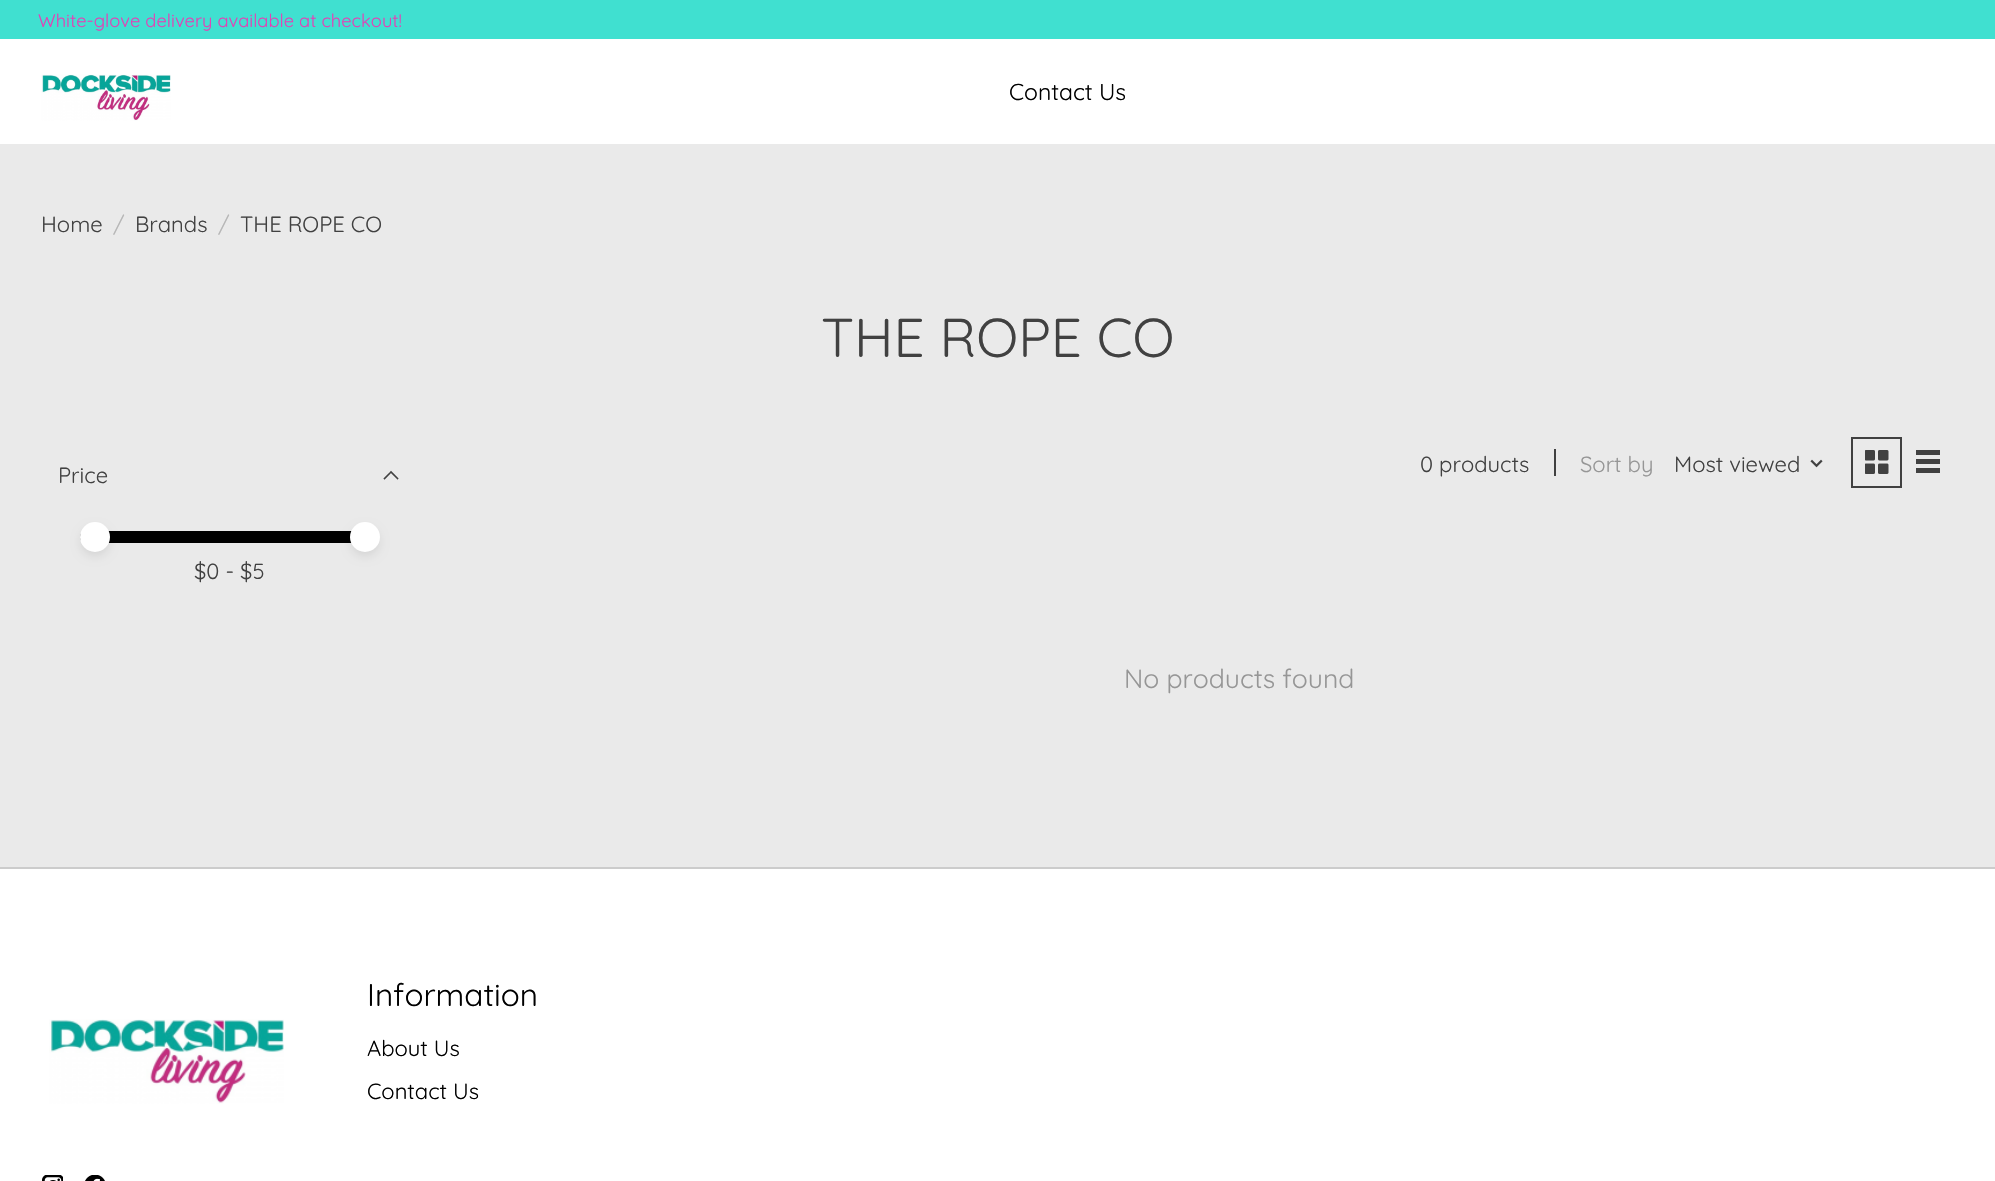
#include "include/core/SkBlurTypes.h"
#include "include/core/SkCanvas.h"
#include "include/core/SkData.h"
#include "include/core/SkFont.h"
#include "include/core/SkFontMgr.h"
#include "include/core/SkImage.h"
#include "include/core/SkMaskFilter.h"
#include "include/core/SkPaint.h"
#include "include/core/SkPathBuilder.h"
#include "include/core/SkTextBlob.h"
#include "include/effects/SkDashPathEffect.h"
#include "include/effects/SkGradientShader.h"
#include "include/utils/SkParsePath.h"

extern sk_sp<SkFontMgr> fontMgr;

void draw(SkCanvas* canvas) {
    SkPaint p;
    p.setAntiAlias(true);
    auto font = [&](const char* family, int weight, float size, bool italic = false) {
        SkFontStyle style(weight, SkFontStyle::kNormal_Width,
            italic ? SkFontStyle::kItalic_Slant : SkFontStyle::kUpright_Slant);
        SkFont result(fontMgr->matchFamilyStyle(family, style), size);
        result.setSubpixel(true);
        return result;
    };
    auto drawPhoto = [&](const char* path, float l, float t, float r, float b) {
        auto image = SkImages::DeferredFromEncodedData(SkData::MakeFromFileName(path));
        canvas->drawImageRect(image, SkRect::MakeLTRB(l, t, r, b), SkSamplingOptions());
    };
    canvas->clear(0xFFEAEAEA);
    p.setColor(0xFFFFFFFF);
    canvas->drawRect(SkRect::MakeLTRB(0, 39, 1995, 144), p);
    p.setColor(0xFF40E0D0);
    canvas->drawRect(SkRect::MakeLTRB(0, 0, 1995, 39), p);
    auto font1 = font("Quicksand", 400, 18.3f);
    p.setColor(0xFFE143B6);
    canvas->drawString("White-glove delivery available at checkout!", 38, 27, font1, p);
    drawPhoto("media/1.png", 41, 74, 171, 121);
    auto font2 = font("Quicksand", 400, 23);
    p.setColor(0xFF000000);
    canvas->drawString("Contact Us", 1009, 100, font2, p);
    auto font3 = font("Quicksand", 400, 22);
    p.setColor(0xFF414141);
    canvas->drawString("Home", 41, 232, font3, p);
    p.setColor(0xFFB7B7B7);
    canvas->drawString("/", 113, 232, font3, p);
    p.setColor(0xFF414141);
    canvas->drawString("Brands", 135, 232, font3, p);
    p.setColor(0xFFB7B7B7);
    canvas->drawString("/", 218, 232, font3, p);
    p.setColor(0xFF414141);
    canvas->drawString("THE ROPE CO", 240, 232, font3, p);
    auto font4 = font("Quicksand", 400, 54.75f);
    canvas->drawString("THE ROPE CO", 821, 357, font4, p);
    canvas->drawString("Price", 58, 483, font3, p);
    p.setStyle(SkPaint::kStroke_Style);
    p.setStrokeWidth(1.6f);
    p.setStrokeCap(SkPaint::kSquare_Cap);
    canvas->drawPath(SkPathBuilder().moveTo(384.5f, 478.5f).lineTo(391, 472).moveTo(397.5f, 478.5f).lineTo(391, 472).detach(), p);
    p.setStyle(SkPaint::kFill_Style);
    p.setColor(0xFF000000);
    canvas->drawPath(SkPathBuilder().moveTo(86, 531).lineTo(365, 531).lineTo(365, 543).lineTo(86, 543).cubicTo(82.5f, 543, 80, 540.5f, 80, 537).cubicTo(80, 533.5f, 82.5f, 531, 86, 531).close().detach(), p);
    p.setColor(0x14000000);
    p.setMaskFilter(SkMaskFilter::MakeBlur(kNormal_SkBlurStyle, 4));
    canvas->drawRoundRect(SkRect::MakeLTRB(80, 527, 110, 557), 15, 15, p);
    p.setMaskFilter(nullptr);
    p.setColor(0xFFFFFFFF);
    canvas->drawCircle(95, 537, 15, p);
    p.setColor(0xFF414141);
    canvas->drawString("$0 - $5", 194, 579, font3, p);
    p.setColor(0x14000000);
    p.setMaskFilter(SkMaskFilter::MakeBlur(kNormal_SkBlurStyle, 4));
    canvas->drawRoundRect(SkRect::MakeLTRB(350, 527, 380, 557), 15, 15, p);
    p.setMaskFilter(nullptr);
    p.setColor(0xFFFFFFFF);
    canvas->drawCircle(365, 537, 15, p);
    p.setColor(0xFF414141);
    canvas->drawString("0 products", 1420, 472, font3, p);
    canvas->drawRect(SkRect::MakeLTRB(1554, 449, 1556, 476), p);
    p.setColor(0xFF969696);
    canvas->drawString("Sort by", 1580, 472, font3, p);
    p.setColor(0xFF414141);
    canvas->drawString("Most viewed", 1674, 472, font3, p);
    drawPhoto("media/2.png", 1810, 459, 1823, 468);
    p.setStyle(SkPaint::kStroke_Style);
    p.setStrokeWidth(2);
    p.setStrokeCap(SkPaint::kButt_Cap);
    canvas->drawRect(SkRect::MakeLTRB(1852, 438, 1901, 487), p);
    drawPhoto("media/3.png", 1865, 450, 1889, 474);
    p.setStyle(SkPaint::kFill_Style);
    {
        const struct { float l, t, r, b; SkColor color; } items[] = {
            {1916, 450, 1940, 455, 0xFF414141},
            {1916, 459, 1940, 464, 0xFF414141},
            {1916, 468, 1940, 473, 0xFF414141},
        };
        for (auto [l, t, r, b, color] : items) {
            p.setColor(color);
            canvas->drawRect(SkRect::MakeLTRB(l, t, r, b), p);
        }
    }
    auto font5 = font("Quicksand", 400, 26.5f);
    p.setColor(0xFF969696);
    canvas->drawString("No products found", 1124, 688, font5, p);
    p.setColor(0xFFFFFFFF);
    canvas->drawRect(SkRect::MakeLTRB(0, 869, 1995, 1181), p);
    p.setColor(0xFFCCCCCC);
    canvas->drawRect(SkRect::MakeLTRB(0, 867, 1995, 869), p);
    drawPhoto("media/4.png", 49, 1019, 284, 1104);
    drawPhoto("media/5.png", 42, 1175, 63, 1181);
    drawPhoto("media/6.png", 85, 1175, 105, 1181);
    auto font6 = font("Quicksand", 400, 31.5f);
    p.setColor(0xFF000000);
    canvas->drawString("Information", 367, 1006, font6, p);
    canvas->drawString("About Us", 367, 1056, font3, p);
    canvas->drawString("Contact Us", 367, 1099, font3, p);
}
